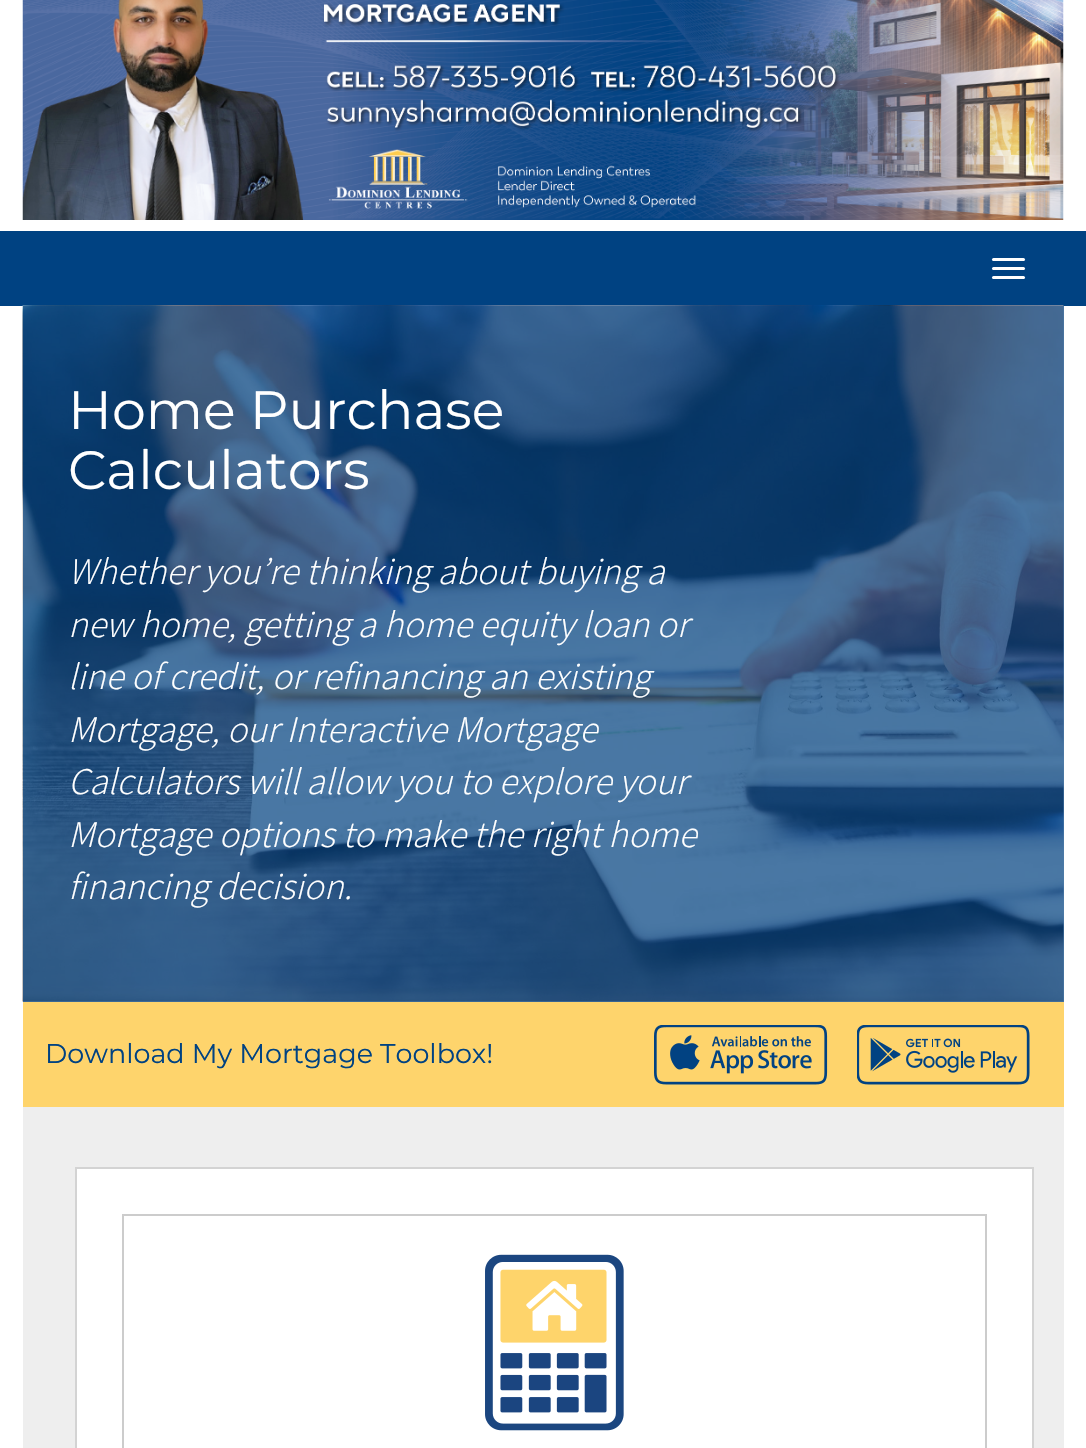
#include "include/core/SkBlurTypes.h"
#include "include/core/SkCanvas.h"
#include "include/core/SkData.h"
#include "include/core/SkFont.h"
#include "include/core/SkFontMgr.h"
#include "include/core/SkImage.h"
#include "include/core/SkMaskFilter.h"
#include "include/core/SkPaint.h"
#include "include/core/SkPathBuilder.h"
#include "include/core/SkTextBlob.h"
#include "include/effects/SkDashPathEffect.h"
#include "include/effects/SkGradientShader.h"
#include "include/utils/SkParsePath.h"

extern sk_sp<SkFontMgr> fontMgr;

void draw(SkCanvas* canvas) {
    SkPaint p;
    p.setAntiAlias(true);
    auto font = [&](const char* family, int weight, float size, bool italic = false) {
        SkFontStyle style(weight, SkFontStyle::kNormal_Width,
            italic ? SkFontStyle::kItalic_Slant : SkFontStyle::kUpright_Slant);
        SkFont result(fontMgr->matchFamilyStyle(family, style), size);
        result.setSubpixel(true);
        return result;
    };
    auto drawPhoto = [&](const char* path, float l, float t, float r, float b) {
        auto image = SkImages::DeferredFromEncodedData(SkData::MakeFromFileName(path));
        canvas->drawImageRect(image, SkRect::MakeLTRB(l, t, r, b), SkSamplingOptions());
    };
    canvas->clear(0xFFFFFFFF);
    p.setColor(0xFF4D7BA8);
    canvas->drawRect(SkRect::MakeLTRB(23, 306, 1064, 1002), p);
    drawPhoto("media/1.png", 22, 0, 1064, 220);
    p.setColor(0xFF004282);
    canvas->drawRect(SkRect::MakeLTRB(0, 231, 1086, 306), p);
    p.setColor(0xFFFFFFFF);
    canvas->drawRoundRect(SkRect::MakeLTRB(992, 258, 1025, 261), 1.5f, 1.5f, p);
    canvas->drawRoundRect(SkRect::MakeLTRB(992, 267, 1025, 270), 1.5f, 1.5f, p);
    canvas->drawRoundRect(SkRect::MakeLTRB(992, 276, 1025, 279), 1.5f, 1.5f, p);
    drawPhoto("media/2.png", 22, 305, 1064, 1002);
    auto font1 = font("Montserrat", 400, 54);
    canvas->drawString("Home Purchase", 68, 429, font1, p);
    canvas->drawString("Calculators", 68, 489, font1, p);
    auto font2 = font("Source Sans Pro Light", 300, 37.5f, true);
    {
        const struct { const char* s; float x, y; } items[] = {
            {"Whether you’re thinking about buying a", 68, 584},
            {"new home, getting a home equity loan or", 68, 637},
            {"line of credit, or refinancing an existing", 68, 689},
            {"Mortgage, our Interactive Mortgage", 68, 742},
            {"Calculators will allow you to explore your", 68, 794},
            {"Mortgage options to make the right home", 68, 847},
            {"financing decision.", 68, 899},
        };
        for (auto [s, x, y] : items) {
            canvas->drawString(s, x, y, font2, p);
        }
    }
    p.setColor(0xFFFED46C);
    canvas->drawRect(SkRect::MakeLTRB(23, 1002, 1064, 1107), p);
    auto font3 = font("Montserrat", 400, 27);
    p.setColor(0xFF004282);
    canvas->drawString("Download My Mortgage Toolbox!", 45, 1063, font3, p);
    drawPhoto("media/3.png", 654, 1025, 828, 1085);
    drawPhoto("media/4.png", 857, 1025, 1030, 1085);
    p.setColor(0xFFEEEEEE);
    canvas->drawRect(SkRect::MakeLTRB(23, 1107, 1064, 1448), p);
    p.setColor(0xFFFFFFFF);
    canvas->drawRect(SkRect::MakeLTRB(76, 1168, 1033, 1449), p);
    p.setStyle(SkPaint::kStroke_Style);
    p.setStrokeWidth(2);
    p.setColor(0xFFD3D3D3);
    canvas->drawRect(SkRect::MakeLTRB(76, 1168, 1033, 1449), p);
    p.setColor(0xFFCCCCCC);
    canvas->drawRect(SkRect::MakeLTRB(123, 1215, 986, 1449), p);
    drawPhoto("media/5.png", 485, 1254, 624, 1431);
}
